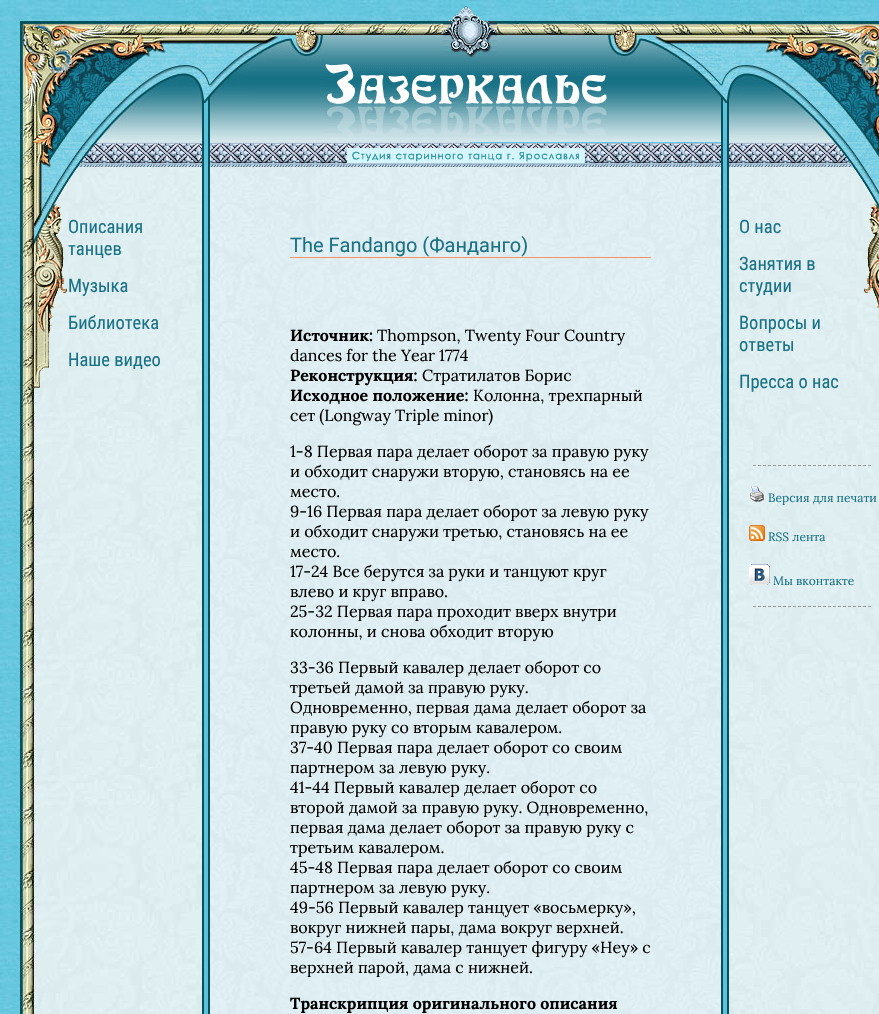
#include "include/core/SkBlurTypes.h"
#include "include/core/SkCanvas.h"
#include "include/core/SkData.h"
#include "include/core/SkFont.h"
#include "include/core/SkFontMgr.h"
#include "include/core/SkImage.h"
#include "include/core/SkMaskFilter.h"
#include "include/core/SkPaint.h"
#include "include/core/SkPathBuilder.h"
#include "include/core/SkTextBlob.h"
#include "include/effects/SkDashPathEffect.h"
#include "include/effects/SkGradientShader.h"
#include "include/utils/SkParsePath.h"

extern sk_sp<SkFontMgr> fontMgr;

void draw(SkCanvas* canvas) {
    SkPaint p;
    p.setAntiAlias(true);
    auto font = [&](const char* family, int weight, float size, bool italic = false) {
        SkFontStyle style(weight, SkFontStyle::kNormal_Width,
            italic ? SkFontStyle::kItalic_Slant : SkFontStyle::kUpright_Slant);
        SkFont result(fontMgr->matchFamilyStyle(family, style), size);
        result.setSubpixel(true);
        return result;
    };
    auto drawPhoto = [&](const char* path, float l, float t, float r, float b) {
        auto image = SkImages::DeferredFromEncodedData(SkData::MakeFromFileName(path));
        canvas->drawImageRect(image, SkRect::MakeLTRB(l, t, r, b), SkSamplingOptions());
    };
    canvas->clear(0xFFFFFFFF);
    drawPhoto("media/1.png", 0, 0, 879, 1014);
    drawPhoto("media/2.png", 449, 6, 466, 21);
    drawPhoto("media/3.png", 466, 6, 483, 21);
    drawPhoto("media/4.png", 20, 21, 202, 143);
    drawPhoto("media/5.png", 202, 104, 210, 143);
    drawPhoto("media/6.png", 202, 21, 210, 104);
    drawPhoto("media/7.png", 210, 21, 470, 143);
    drawPhoto("media/8.png", 210, 21, 324, 61);
    drawPhoto("media/9.png", 443, 21, 470, 57);
    drawPhoto("media/10.png", 210, 61, 250, 97);
    drawPhoto("media/11.png", 324, 64, 470, 143);
    drawPhoto("media/12.png", 470, 21, 721, 142);
    drawPhoto("media/13.png", 470, 21, 497, 58);
    drawPhoto("media/14.png", 607, 21, 721, 61);
    drawPhoto("media/15.png", 470, 64, 607, 135);
    drawPhoto("media/16.png", 681, 61, 721, 97);
    drawPhoto("media/5.png", 721, 104, 729, 143);
    drawPhoto("media/17.png", 721, 21, 729, 104);
    drawPhoto("media/18.png", 729, 21, 879, 143);
    drawPhoto("media/19.png", 26, 143, 202, 167);
    drawPhoto("media/20.png", 20, 143, 96, 167);
    drawPhoto("media/21.png", 202, 143, 210, 167);
    drawPhoto("media/22.png", 210, 143, 721, 167);
    drawPhoto("media/23.png", 347, 148, 585, 163);
    drawPhoto("media/21.png", 721, 143, 729, 167);
    drawPhoto("media/24.png", 729, 143, 852, 167);
    drawPhoto("media/25.png", 835, 143, 879, 167);
    drawPhoto("media/26.png", 56, 167, 202, 203);
    drawPhoto("media/27.png", 20, 167, 78, 203);
    drawPhoto("media/28.png", 202, 167, 210, 203);
    drawPhoto("media/29.png", 210, 167, 721, 203);
    drawPhoto("media/28.png", 721, 167, 729, 203);
    drawPhoto("media/30.png", 729, 167, 875, 203);
    drawPhoto("media/31.png", 853, 167, 879, 203);
    drawPhoto("media/32.png", 20, 203, 202, 1014);
    drawPhoto("media/33.png", 20, 203, 67, 388);
    auto font1 = font("Roboto Condensed", 400, 18.5f);
    p.setColor(0xFF1A7286);
    {
        const struct { const char* s; float x, y; } items[] = {
            {"Описания", 68, 233},
            {"танцев", 68, 255},
            {"Музыка", 68, 292},
            {"Библиотека", 68, 329},
            {"Наше видео", 68, 366},
        };
        for (auto [s, x, y] : items) {
            canvas->drawString(s, x, y, font1, p);
        }
    }
    drawPhoto("media/34.png", 202, 203, 210, 1014);
    drawPhoto("media/35.png", 210, 203, 721, 1014);
    p.setColor(0xFFFF9060);
    canvas->drawRect(SkRect::MakeLTRB(290, 257, 651, 258), p);
    auto font2 = font("Roboto", 400, 20);
    p.setColor(0xFF1A7286);
    canvas->drawString("The Fandango (Фанданго)", 290, 252, font2, p);
    auto font3 = font("Lora", 700, 16);
    p.setColor(0xFF000000);
    canvas->drawString("Источник:", 290, 341, font3, p);
    auto font4 = font("Lora", 400, 16);
    canvas->drawString("Thompson, Twenty Four Country", 377, 341, font4, p);
    canvas->drawString("dances for the Year 1774", 290, 361, font4, p);
    canvas->drawString("Реконструкция:", 290, 381, font3, p);
    canvas->drawString("Стратилатов Борис", 422, 381, font4, p);
    canvas->drawString("Исходное положение:", 290, 401, font3, p);
    {
        const struct { const char* s; float x, y; } items[] = {
            {"Колонна, трехпарный", 473, 401},
            {"сет (Longway Triple minor)", 290, 421},
            {"1-8 Первая пара делает оборот за правую руку", 290, 457},
            {"и обходит снаружи вторую, становясь на ее", 290, 477},
            {"место.", 290, 497},
            {"9-16 Первая пара делает оборот за левую руку", 290, 517},
            {"и обходит снаружи третью, становясь на ее", 290, 537},
            {"место.", 290, 557},
            {"17-24 Все берутся за руки и танцуют круг", 290, 577},
            {"влево и круг вправо.", 290, 597},
            {"25-32 Первая пара проходит вверх внутри", 290, 617},
            {"колонны, и снова обходит вторую", 290, 637},
            {"33-36 Первый кавалер делает оборот со", 290, 673},
            {"третьей дамой за правую руку.", 290, 693},
            {"Одновременно, первая дама делает оборот за", 290, 713},
            {"правую руку со вторым кавалером.", 290, 733},
            {"37-40 Первая пара делает оборот со своим", 290, 753},
            {"партнером за левую руку.", 290, 773},
            {"41-44 Первый кавалер делает оборот со", 290, 793},
            {"второй дамой за правую руку. Одновременно,", 290, 813},
            {"первая дама делает оборот за правую руку с", 290, 833},
            {"третьим кавалером.", 290, 853},
            {"45-48 Первая пара делает оборот со своим", 290, 873},
            {"партнером за левую руку.", 290, 893},
            {"49-56 Первый кавалер танцует «восьмерку»,", 290, 913},
            {"вокруг нижней пары, дама вокруг верхней.", 290, 933},
            {"57-64 Первый кавалер танцует фигуру «Hey» с", 290, 953},
            {"верхней парой, дама с нижней.", 290, 973},
        };
        for (auto [s, x, y] : items) {
            canvas->drawString(s, x, y, font4, p);
        }
    }
    canvas->drawString("Транскрипция оригинального описания", 290, 1009, font3, p);
    drawPhoto("media/34.png", 721, 203, 729, 1014);
    drawPhoto("media/36.png", 729, 203, 879, 1014);
    p.setColor(0xFF1A7286);
    {
        const struct { const char* s; float x, y; } items[] = {
            {"О нас", 739, 233},
            {"Занятия в", 739, 270},
            {"студии", 739, 292},
            {"Вопросы и", 739, 329},
            {"ответы", 739, 351},
            {"Пресса о нас", 739, 388},
        };
        for (auto [s, x, y] : items) {
            canvas->drawString(s, x, y, font1, p);
        }
    }
    drawPhoto("media/37.png", 864, 203, 879, 317);
    p.setStyle(SkPaint::kStroke_Style);
    p.setStrokeWidth(1);
    p.setColor(0xFF999999);
    p.setPathEffect(SkDashPathEffect::Make({{3, 2}}, 0));
    canvas->drawPath(SkPathBuilder().moveTo(753, 465.5f).lineTo(871, 465.5f).detach(), p);
    p.setPathEffect(nullptr);
    p.setStyle(SkPaint::kFill_Style);
    p.setColor(0xFF9F9F9F);
    canvas->drawRect(SkRect::MakeLTRB(753, 465, 754, 466), p);
    drawPhoto("media/38.png", 750, 486, 765, 502);
    auto font5 = font("Lora", 400, 12);
    p.setColor(0xFF1A7286);
    canvas->drawString("Версия для печати", 768, 502, font5, p);
    drawPhoto("media/39.png", 749, 525, 765, 541);
    canvas->drawString("RSS лента", 768, 541, font5, p);
    drawPhoto("media/40.png", 749, 564, 770, 585);
    canvas->drawString("Мы вконтакте", 773, 585, font5, p);
    p.setStyle(SkPaint::kStroke_Style);
    p.setColor(0xFF999999);
    p.setPathEffect(SkDashPathEffect::Make({{3, 2}}, 0));
    canvas->drawPath(SkPathBuilder().moveTo(753, 606.5f).lineTo(871, 606.5f).detach(), p);
    p.setPathEffect(nullptr);
    p.setStyle(SkPaint::kFill_Style);
    p.setColor(0xFF9F9F9F);
    canvas->drawRect(SkRect::MakeLTRB(753, 606, 754, 607), p);
}
